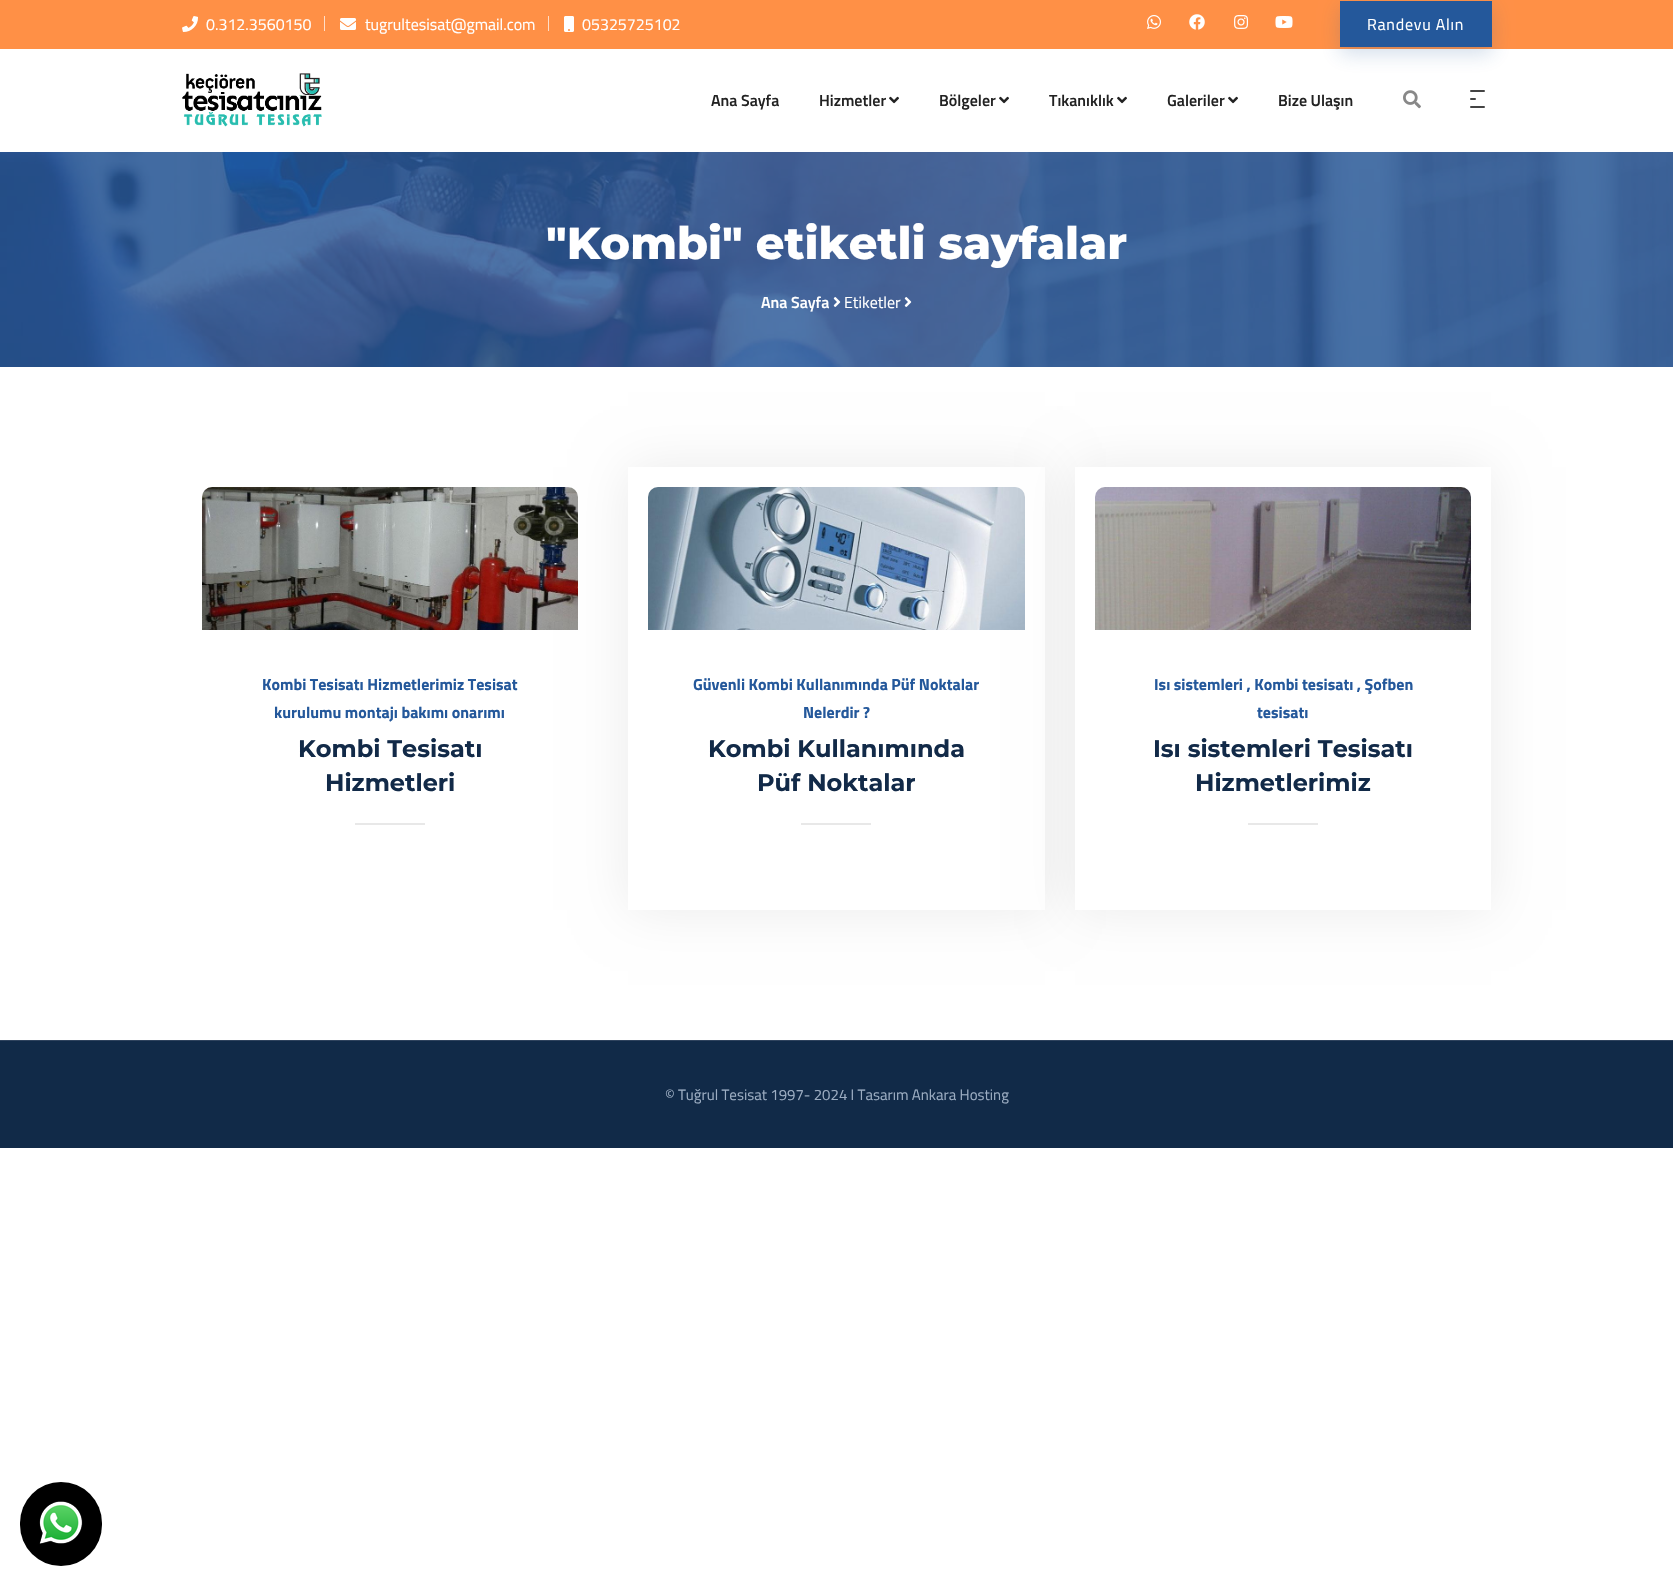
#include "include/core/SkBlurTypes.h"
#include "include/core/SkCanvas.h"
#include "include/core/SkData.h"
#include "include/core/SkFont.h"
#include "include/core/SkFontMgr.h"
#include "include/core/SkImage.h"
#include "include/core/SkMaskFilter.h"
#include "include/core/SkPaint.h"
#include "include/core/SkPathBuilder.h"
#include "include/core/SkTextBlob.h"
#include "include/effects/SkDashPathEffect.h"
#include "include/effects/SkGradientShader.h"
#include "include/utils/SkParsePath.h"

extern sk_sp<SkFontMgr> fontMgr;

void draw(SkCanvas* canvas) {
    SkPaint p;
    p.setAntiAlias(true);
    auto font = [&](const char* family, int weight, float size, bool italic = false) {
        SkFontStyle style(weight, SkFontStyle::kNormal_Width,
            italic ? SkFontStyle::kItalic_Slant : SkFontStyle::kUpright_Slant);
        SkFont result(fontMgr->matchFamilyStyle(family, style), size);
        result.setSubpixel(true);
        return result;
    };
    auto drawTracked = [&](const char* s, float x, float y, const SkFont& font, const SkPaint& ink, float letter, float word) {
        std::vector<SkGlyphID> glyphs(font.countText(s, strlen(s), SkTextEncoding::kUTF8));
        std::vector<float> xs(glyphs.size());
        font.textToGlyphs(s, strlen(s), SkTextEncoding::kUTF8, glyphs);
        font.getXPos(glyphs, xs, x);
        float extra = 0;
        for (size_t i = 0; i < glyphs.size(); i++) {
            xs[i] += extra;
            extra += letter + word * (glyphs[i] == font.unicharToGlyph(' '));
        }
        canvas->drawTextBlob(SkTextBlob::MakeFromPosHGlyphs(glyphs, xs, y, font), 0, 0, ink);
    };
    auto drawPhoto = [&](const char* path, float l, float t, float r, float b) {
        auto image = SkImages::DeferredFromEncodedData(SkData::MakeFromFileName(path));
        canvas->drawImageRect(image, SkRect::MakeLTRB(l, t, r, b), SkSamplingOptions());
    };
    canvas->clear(0xFFFFFFFF);
    p.setColor(0xFFFF9046);
    canvas->drawRect(SkRect::MakeLTRB(0, 0, 1673, 49), p);
    drawPhoto("media/1.png", 182, 16, 198, 32);
    auto font1 = font("Titillium Web", 400, 16);
    p.setColor(0xFFFFFFFF);
    canvas->drawString("0.312.3560150", 206, 30, font1, p);
    p.setColor(0xFFFFDEC7);
    canvas->drawRect(SkRect::MakeLTRB(324, 16, 325, 31), p);
    drawPhoto("media/2.png", 340, 18, 356, 30);
    p.setColor(0xFFFFFFFF);
    canvas->drawString("tugrultesisat@gmail.com", 365, 30, font1, p);
    p.setColor(0xFFFFDEC7);
    canvas->drawRect(SkRect::MakeLTRB(548, 16, 549, 31), p);
    drawPhoto("media/3.png", 564, 16, 574, 32);
    p.setColor(0xFFFFFFFF);
    canvas->drawString("05325725102", 582, 30, font1, p);
    drawPhoto("media/4.png", 1147, 15, 1161, 29);
    drawPhoto("media/5.png", 1189, 14, 1205, 30);
    drawPhoto("media/6.png", 1234, 15, 1249, 29);
    drawPhoto("media/7.png", 1275, 16, 1293, 28);
    p.setColor(0x3324589B);
    p.setMaskFilter(SkMaskFilter::MakeBlur(kNormal_SkBlurStyle, 10));
    canvas->drawRect(SkRect::MakeLTRB(1340, 8, 1492, 54), p);
    p.setMaskFilter(nullptr);
    p.setColor(0xFF24589B);
    canvas->drawRect(SkRect::MakeLTRB(1340, 1, 1492, 47), p);
    p.setColor(0xFFFFFFFF);
    drawTracked("Randevu Alın", 1367, 30, font1, p, 0.75f, 0);
    drawPhoto("media/8.png", 182, 73, 322, 127);
    auto font2 = font("Titillium Web", 600, 16);
    p.setColor(0xFF222222);
    canvas->drawString("Ana Sayfa", 711, 106, font2, p);
    canvas->drawString("Hizmetler", 819, 106, font2, p);
    drawPhoto("media/9.png", 889, 96, 899, 104);
    canvas->drawString("Bölgeler", 939, 106, font2, p);
    drawPhoto("media/9.png", 999, 96, 1009, 104);
    canvas->drawString("Tıkanıklık", 1049, 106, font2, p);
    drawPhoto("media/9.png", 1117, 96, 1127, 104);
    canvas->drawString("Galeriler", 1167, 106, font2, p);
    drawPhoto("media/9.png", 1228, 96, 1238, 104);
    canvas->drawString("Bize Ulaşın", 1278, 106, font2, p);
    drawPhoto("media/10.png", 1403, 90, 1421, 109);
    p.setColor(0xFF444444);
    canvas->drawRoundRect(SkRect::MakeLTRB(1470, 98, 1476, 100), 1, 1, p);
    canvas->drawRoundRect(SkRect::MakeLTRB(1470, 90, 1485, 92), 1, 1, p);
    canvas->drawRoundRect(SkRect::MakeLTRB(1470, 106, 1485, 108), 1, 1, p);
    drawPhoto("media/11.png", 0, 152, 1673, 367);
    auto font3 = font("Montserrat", 800, 44.75f);
    p.setColor(0xFFFFFFFF);
    canvas->drawString("\"Kombi\" etiketli sayfalar", 546, 259, font3, p);
    canvas->drawString("Ana Sayfa", 761, 308, font2, p);
    drawPhoto("media/12.png", 833, 297, 841, 307);
    canvas->drawString("Etiketler", 844, 308, font1, p);
    drawPhoto("media/13.png", 904, 297, 912, 307);
    drawPhoto("media/14.png", 202, 487, 578, 630);
    auto font4 = font("Titillium Web", 700, 16);
    p.setColor(0xFF24589B);
    canvas->drawString("Kombi Tesisatı Hizmetlerimiz Tesisat", 262, 690, font4, p);
    canvas->drawString("kurulumu montajı bakımı onarımı", 274, 718, font4, p);
    auto font5 = font("Montserrat", 700, 24);
    p.setColor(0xFF122A48);
    canvas->drawString("Kombi Tesisatı", 298, 757, font5, p);
    canvas->drawString("Hizmetleri", 325, 791, font5, p);
    p.setColor(0xFFE8E8E8);
    canvas->drawRect(SkRect::MakeLTRB(355, 823, 425, 825), p);
    p.setColor(0x14050505);
    p.setMaskFilter(SkMaskFilter::MakeBlur(kNormal_SkBlurStyle, 25));
    canvas->drawRect(SkRect::MakeLTRB(628, 467, 1045, 910), p);
    p.setMaskFilter(nullptr);
    p.setColor(0xFFFFFFFF);
    canvas->drawRect(SkRect::MakeLTRB(628, 467, 1045, 910), p);
    drawPhoto("media/15.png", 648, 487, 1025, 630);
    p.setColor(0xFF24589B);
    canvas->drawString("Güvenli Kombi Kullanımında Püf Noktalar", 693, 690, font4, p);
    canvas->drawString("Nelerdir ?", 803, 718, font4, p);
    p.setColor(0xFF122A48);
    canvas->drawString("Kombi Kullanımında", 708, 757, font5, p);
    canvas->drawString("Püf Noktalar", 757, 791, font5, p);
    p.setColor(0xFFE8E8E8);
    canvas->drawRect(SkRect::MakeLTRB(801, 823, 871, 825), p);
    p.setColor(0x14050505);
    p.setMaskFilter(SkMaskFilter::MakeBlur(kNormal_SkBlurStyle, 25));
    canvas->drawRect(SkRect::MakeLTRB(1075, 467, 1491, 910), p);
    p.setMaskFilter(nullptr);
    p.setColor(0xFFFFFFFF);
    canvas->drawRect(SkRect::MakeLTRB(1075, 467, 1491, 910), p);
    drawPhoto("media/16.png", 1095, 487, 1471, 630);
    p.setColor(0xFF24589B);
    canvas->drawString("Isı sistemleri , Kombi tesisatı , Şofben", 1154, 690, font4, p);
    canvas->drawString("tesisatı", 1257, 718, font4, p);
    p.setColor(0xFF122A48);
    canvas->drawString("Isı sistemleri Tesisatı", 1153, 757, font5, p);
    canvas->drawString("Hizmetlerimiz", 1195, 791, font5, p);
    {
        const struct { float l, t, r, b; SkColor color; } items[] = {
            {1248, 823, 1318, 825, 0xFFE8E8E8},
            {0, 1041, 1673, 1148, 0xFF112A48},
            {0, 1040, 1673, 1041, 0xFF2F435E},
        };
        for (auto [l, t, r, b, color] : items) {
            p.setColor(color);
            canvas->drawRect(SkRect::MakeLTRB(l, t, r, b), p);
        }
    }
    auto font6 = font("Titillium Web", 400, 15);
    p.setColor(0xFF9CADC2);
    canvas->drawString("© Tuğrul Tesisat 1997- 2024 I Tasarım Ankara Hosting", 665, 1100, font6, p);
    p.setColor(0xFF000000);
    canvas->drawRoundRect(SkRect::MakeLTRB(20, 1482, 102, 1566), 41, 41, p);
    drawPhoto("media/17.png", 39, 1501, 83, 1544);
}
